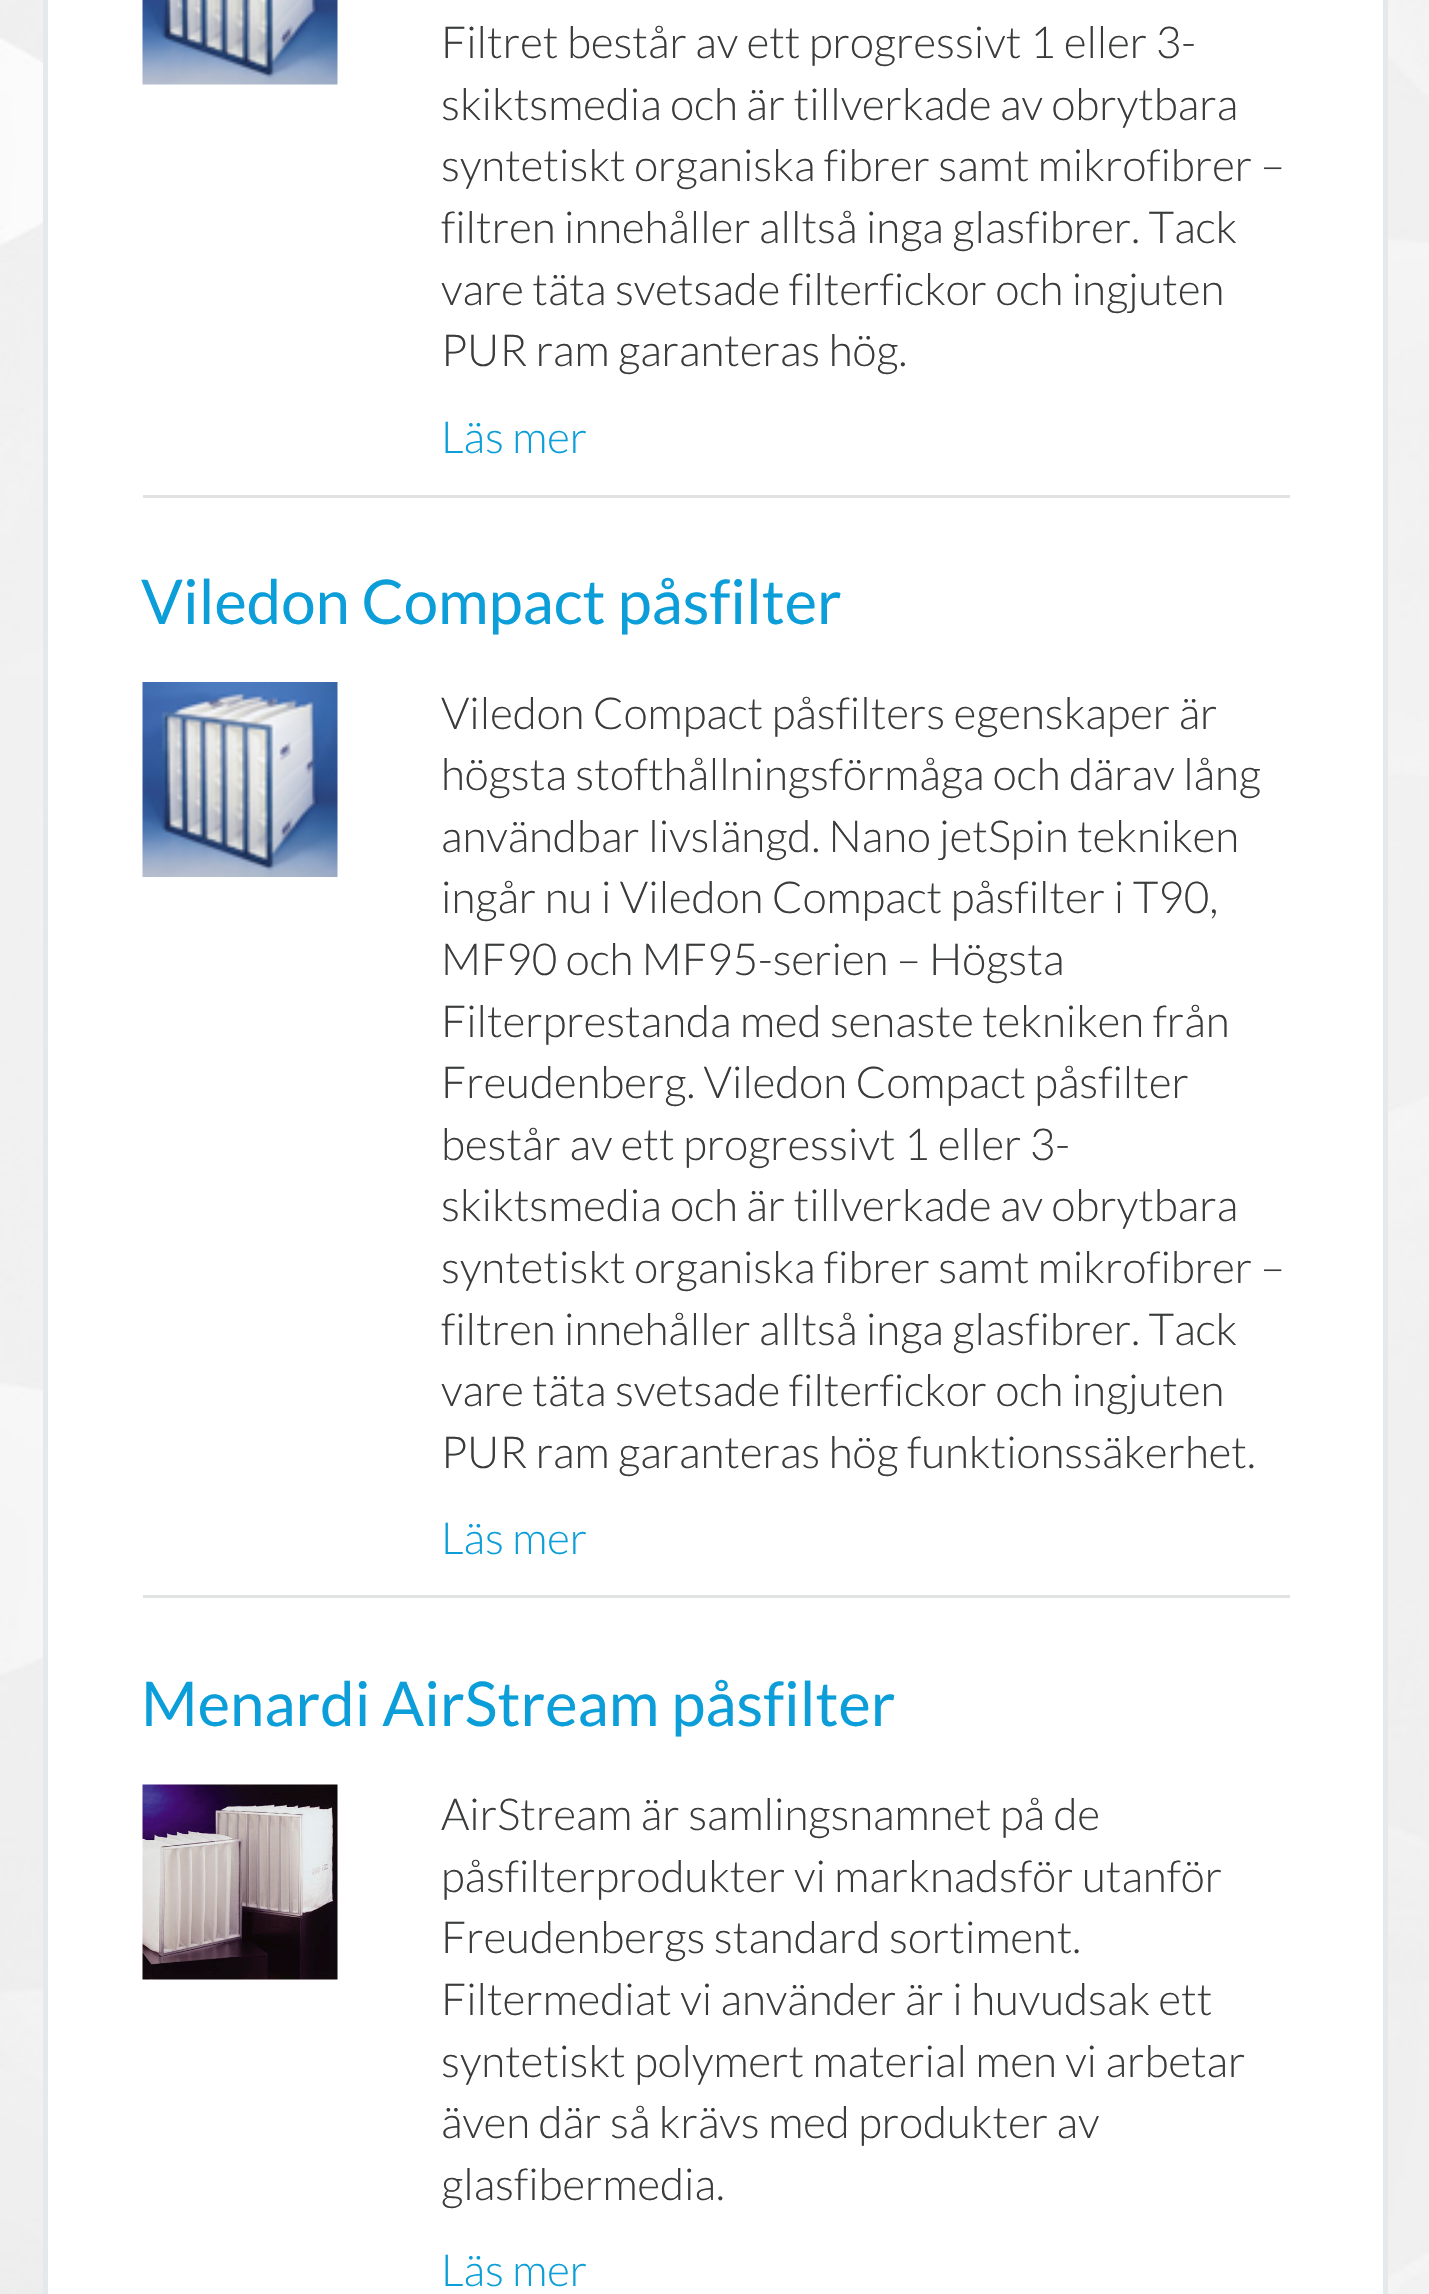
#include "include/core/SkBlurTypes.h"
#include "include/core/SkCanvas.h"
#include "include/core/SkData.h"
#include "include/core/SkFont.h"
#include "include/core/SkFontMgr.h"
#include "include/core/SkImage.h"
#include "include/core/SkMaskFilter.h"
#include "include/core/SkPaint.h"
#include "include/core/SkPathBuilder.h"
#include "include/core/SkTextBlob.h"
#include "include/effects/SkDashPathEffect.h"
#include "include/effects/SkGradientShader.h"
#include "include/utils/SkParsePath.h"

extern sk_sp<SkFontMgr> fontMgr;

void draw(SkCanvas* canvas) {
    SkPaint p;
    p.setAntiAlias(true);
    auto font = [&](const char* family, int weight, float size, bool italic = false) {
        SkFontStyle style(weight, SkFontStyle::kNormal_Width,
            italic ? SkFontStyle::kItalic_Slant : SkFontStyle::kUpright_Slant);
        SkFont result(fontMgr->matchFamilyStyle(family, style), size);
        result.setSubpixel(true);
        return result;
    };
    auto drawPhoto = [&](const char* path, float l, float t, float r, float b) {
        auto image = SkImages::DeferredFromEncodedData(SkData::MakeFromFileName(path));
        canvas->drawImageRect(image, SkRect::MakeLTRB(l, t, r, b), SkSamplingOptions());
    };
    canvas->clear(0xFFFFFFFF);
    drawPhoto("media/1.png", 0, 0, 1429, 2294);
    p.setColor(0xFFFFFFFF);
    canvas->drawRect(SkRect::MakeLTRB(45.5f, -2.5f, 1385.5f, 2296.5f), p);
    p.setStyle(SkPaint::kStroke_Style);
    p.setStrokeWidth(5);
    p.setColor(0xFFE4E9EB);
    canvas->drawRect(SkRect::MakeLTRB(45.5f, -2.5f, 1385.5f, 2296.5f), p);
    p.setStyle(SkPaint::kFill_Style);
    p.setColor(0xFFE1E2E2);
    canvas->drawRect(SkRect::MakeLTRB(143, 495, 1290, 498), p);
    drawPhoto("media/2.png", 142, 0, 338, 85);
    auto font1 = font("Lato", 300, 44);
    p.setColor(0xFF3A3B3B);
    {
        const struct { const char* s; float x, y; } items[] = {
            {"Filtret består av ett progressivt 1 eller 3-", 441, 58},
            {"skiktsmedia och är tillverkade av obrytbara", 441, 120},
            {"syntetiskt organiska fibrer samt mikrofibrer –", 441, 181},
            {"filtren innehåller alltså inga glasfibrer. Tack", 441, 243},
            {"vare täta svetsade filterfickor och ingjuten", 441, 305},
            {"PUR ram garanteras hög.", 441, 366},
        };
        for (auto [s, x, y] : items) {
            canvas->drawString(s, x, y, font1, p);
        }
    }
    p.setColor(0xFF0C9ED9);
    canvas->drawString("Läs mer", 441, 453, font1, p);
    p.setColor(0xFFE1E2E2);
    canvas->drawRect(SkRect::MakeLTRB(143, 1595, 1290, 1598), p);
    auto font2 = font("Lato", 400, 61.6f);
    p.setColor(0xFF0C9ED9);
    canvas->drawString("Viledon Compact påsfilter", 141, 624, font2, p);
    drawPhoto("media/3.png", 142, 682, 338, 877);
    p.setColor(0xFF3A3B3B);
    {
        const struct { const char* s; float x, y; } items[] = {
            {"Viledon Compact påsfilters egenskaper är", 441, 729},
            {"högsta stofthållningsförmåga och därav lång", 441, 790},
            {"användbar livslängd. Nano jetSpin tekniken", 441, 852},
            {"ingår nu i Viledon Compact påsfilter i T90,", 441, 913},
            {"MF90 och MF95-serien – Högsta", 441, 975},
            {"Filterprestanda med senaste tekniken från", 441, 1037},
            {"Freudenberg. Viledon Compact påsfilter", 441, 1098},
            {"består av ett progressivt 1 eller 3-", 441, 1160},
            {"skiktsmedia och är tillverkade av obrytbara", 441, 1221},
            {"syntetiskt organiska fibrer samt mikrofibrer –", 441, 1283},
            {"filtren innehåller alltså inga glasfibrer. Tack", 441, 1345},
            {"vare täta svetsade filterfickor och ingjuten", 441, 1406},
            {"PUR ram garanteras hög funktionssäkerhet.", 441, 1468},
        };
        for (auto [s, x, y] : items) {
            canvas->drawString(s, x, y, font1, p);
        }
    }
    p.setColor(0xFF0C9ED9);
    canvas->drawString("Läs mer", 441, 1554, font1, p);
    canvas->drawString("Menardi AirStream påsfilter", 141, 1726, font2, p);
    drawPhoto("media/4.png", 142, 1784, 338, 1980);
    p.setColor(0xFF3A3B3B);
    {
        const struct { const char* s; float x, y; } items[] = {
            {"AirStream är samlingsnamnet på de", 441, 1830},
            {"påsfilterprodukter vi marknadsför utanför", 441, 1892},
            {"Freudenbergs standard sortiment.", 441, 1953},
            {"Filtermediat vi använder är i huvudsak ett", 441, 2015},
            {"syntetiskt polymert material men vi arbetar", 441, 2077},
            {"även där så krävs med produkter av", 441, 2138},
            {"glasfibermedia.", 441, 2200},
        };
        for (auto [s, x, y] : items) {
            canvas->drawString(s, x, y, font1, p);
        }
    }
    p.setColor(0xFF0C9ED9);
    canvas->drawString("Läs mer", 441, 2286, font1, p);
}
